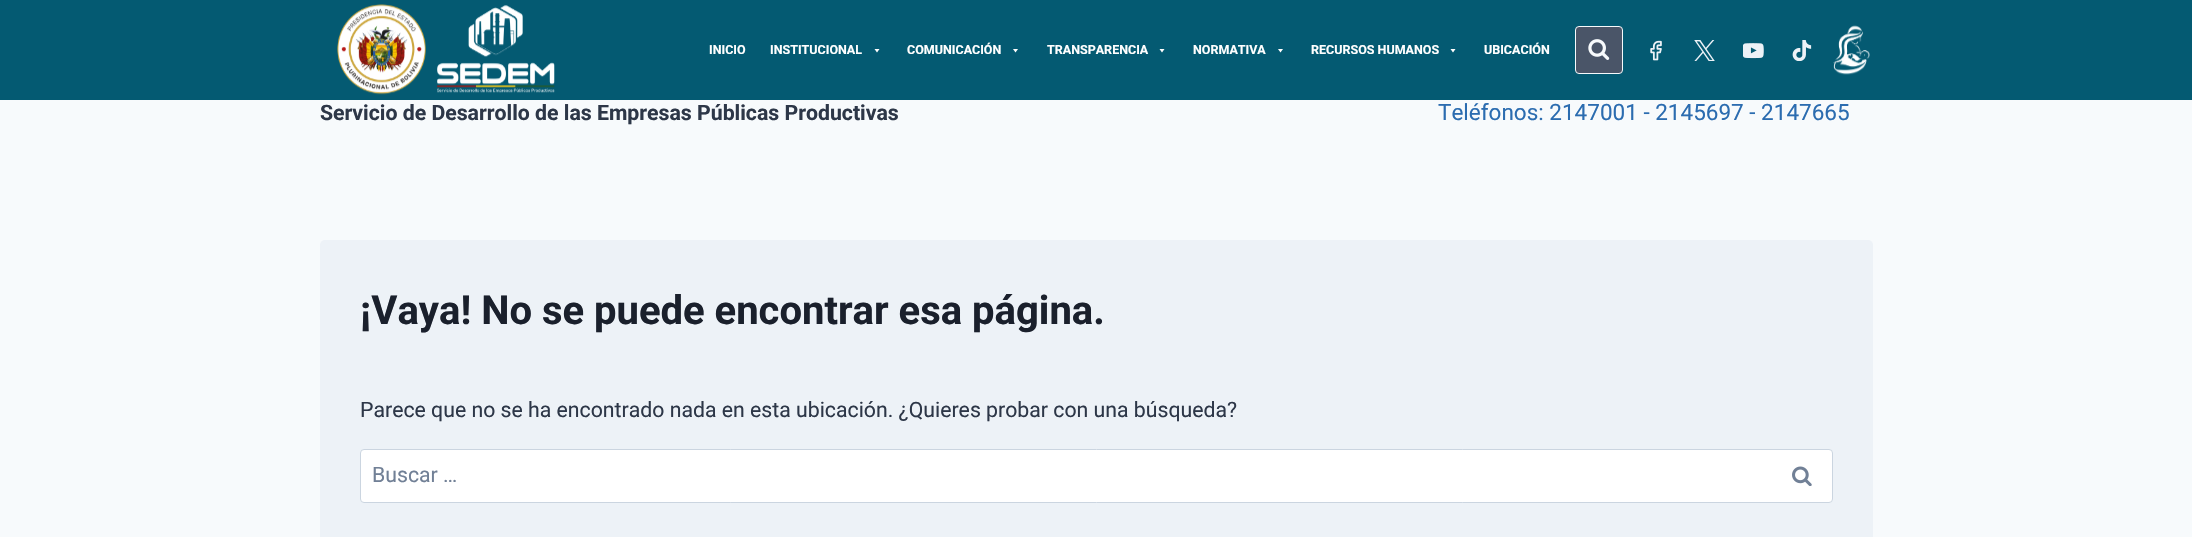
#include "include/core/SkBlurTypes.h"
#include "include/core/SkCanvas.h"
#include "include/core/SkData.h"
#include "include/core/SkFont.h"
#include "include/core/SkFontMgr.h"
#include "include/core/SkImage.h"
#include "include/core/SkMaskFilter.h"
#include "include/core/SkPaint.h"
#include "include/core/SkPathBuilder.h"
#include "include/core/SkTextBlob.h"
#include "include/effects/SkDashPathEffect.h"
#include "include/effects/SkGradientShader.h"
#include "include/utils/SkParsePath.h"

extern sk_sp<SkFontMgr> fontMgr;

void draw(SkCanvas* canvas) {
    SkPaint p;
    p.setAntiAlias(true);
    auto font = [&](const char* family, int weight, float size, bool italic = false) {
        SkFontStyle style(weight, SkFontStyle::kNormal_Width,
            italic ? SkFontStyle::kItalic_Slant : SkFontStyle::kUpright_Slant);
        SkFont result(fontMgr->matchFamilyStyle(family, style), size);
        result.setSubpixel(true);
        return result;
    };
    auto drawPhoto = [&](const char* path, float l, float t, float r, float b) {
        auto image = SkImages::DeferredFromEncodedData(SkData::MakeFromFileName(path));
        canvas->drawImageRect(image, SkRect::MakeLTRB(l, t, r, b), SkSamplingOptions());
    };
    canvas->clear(0xFFF7FAFC);
    p.setColor(0xFF045A72);
    canvas->drawRect(SkRect::MakeLTRB(0, 0, 2192, 100), p);
    drawPhoto("media/1.png", 337, 4, 555, 95);
    auto font1 = font("Roboto", 700, 12.5f);
    p.setColor(0xFFFFFFFF);
    canvas->drawString("INICIO", 709, 54, font1, p);
    canvas->drawString("INSTITUCIONAL", 770, 54, font1, p);
    canvas->drawPath(SkPathBuilder().moveTo(879.5f, 49).lineTo(877, 52.5f).lineTo(874.5f, 49).close().detach(), p);
    canvas->drawString("COMUNICACIÓN", 907, 54, font1, p);
    canvas->drawPath(SkPathBuilder().moveTo(1018, 49).lineTo(1015.5f, 52.5f).lineTo(1013, 49).close().detach(), p);
    canvas->drawString("TRANSPARENCIA", 1047, 54, font1, p);
    canvas->drawPath(SkPathBuilder().moveTo(1164.5f, 49).lineTo(1162, 52.5f).lineTo(1159.5f, 49).close().detach(), p);
    canvas->drawString("NORMATIVA", 1193, 54, font1, p);
    canvas->drawPath(SkPathBuilder().moveTo(1283, 49).lineTo(1280.5f, 52.5f).lineTo(1278, 49).close().detach(), p);
    canvas->drawString("RECURSOS HUMANOS", 1311, 54, font1, p);
    canvas->drawPath(SkPathBuilder().moveTo(1455.5f, 49).lineTo(1453, 52.5f).lineTo(1450.5f, 49).close().detach(), p);
    canvas->drawString("UBICACIÓN", 1484, 54, font1, p);
    p.setColor(0xFF4A5568);
    canvas->drawRoundRect(SkRect::MakeLTRB(1575.5f, 26.5f, 1622.5f, 73.5f), 3.5f, 3.5f, p);
    p.setStyle(SkPaint::kStroke_Style);
    p.setStrokeWidth(1);
    p.setColor(0xFFF7FAFC);
    canvas->drawRoundRect(SkRect::MakeLTRB(1575.5f, 26.5f, 1622.5f, 73.5f), 3.5f, 3.5f, p);
    drawPhoto("media/2.png", 1588, 39, 1610, 60);
    drawPhoto("media/3.png", 1650, 40, 1662, 61);
    drawPhoto("media/4.png", 1694, 40, 1715, 61);
    drawPhoto("media/5.png", 1743, 43, 1764, 59);
    drawPhoto("media/6.png", 1792, 40, 1812, 61);
    drawPhoto("media/7.png", 1833, 25, 1870, 75);
    auto font2 = font("Roboto", 700, 21.25f);
    p.setStyle(SkPaint::kFill_Style);
    p.setColor(0xFF2D3748);
    canvas->drawString("Servicio de Desarrollo de las Empresas Públicas Productivas", 320, 120, font2, p);
    auto font3 = font("Roboto", 400, 22.5f);
    p.setColor(0xFF2B6CB0);
    canvas->drawString("Teléfonos: 2147001 - 2145697 - 2147665", 1438, 120, font3, p);
    p.setColor(0xFFEDF2F7);
    canvas->drawRoundRect(SkRect::MakeLTRB(320, 240, 1873, 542), 5, 5, p);
    auto font4 = font("Roboto", 700, 40);
    p.setColor(0xFF1A202C);
    canvas->drawString("¡Vaya! No se puede encontrar esa página.", 360, 324, font4, p);
    auto font5 = font("Roboto", 400, 21.25f);
    p.setColor(0xFF2D3748);
    canvas->drawString("Parece que no se ha encontrado nada en esta ubicación. ¿Quieres probar con una búsqueda?", 360, 417, font5, p);
    p.setColor(0xFFFFFFFF);
    canvas->drawRoundRect(SkRect::MakeLTRB(360.5f, 449.5f, 1832.5f, 502.5f), 3.5f, 3.5f, p);
    p.setStyle(SkPaint::kStroke_Style);
    p.setColor(0xFFCBD5E0);
    canvas->drawRoundRect(SkRect::MakeLTRB(360.5f, 449.5f, 1832.5f, 502.5f), 3.5f, 3.5f, p);
    p.setStyle(SkPaint::kFill_Style);
    p.setColor(0xFF718096);
    canvas->drawString("Buscar …", 372, 482, font5, p);
    drawPhoto("media/8.png", 1792, 466, 1812, 486);
}
